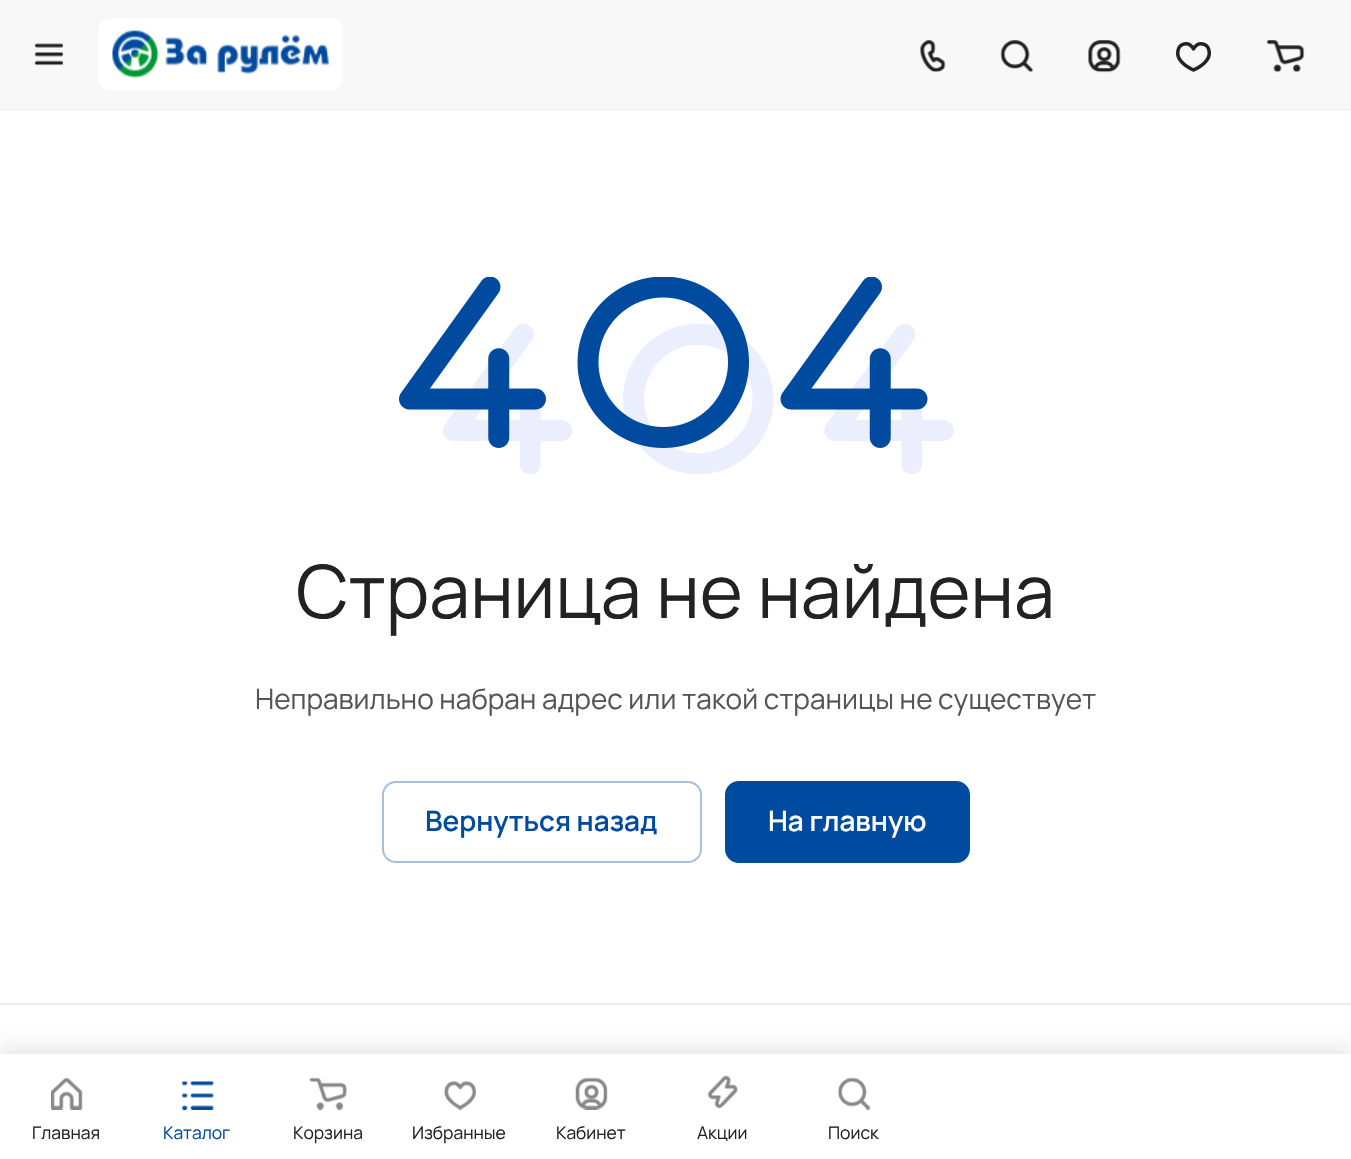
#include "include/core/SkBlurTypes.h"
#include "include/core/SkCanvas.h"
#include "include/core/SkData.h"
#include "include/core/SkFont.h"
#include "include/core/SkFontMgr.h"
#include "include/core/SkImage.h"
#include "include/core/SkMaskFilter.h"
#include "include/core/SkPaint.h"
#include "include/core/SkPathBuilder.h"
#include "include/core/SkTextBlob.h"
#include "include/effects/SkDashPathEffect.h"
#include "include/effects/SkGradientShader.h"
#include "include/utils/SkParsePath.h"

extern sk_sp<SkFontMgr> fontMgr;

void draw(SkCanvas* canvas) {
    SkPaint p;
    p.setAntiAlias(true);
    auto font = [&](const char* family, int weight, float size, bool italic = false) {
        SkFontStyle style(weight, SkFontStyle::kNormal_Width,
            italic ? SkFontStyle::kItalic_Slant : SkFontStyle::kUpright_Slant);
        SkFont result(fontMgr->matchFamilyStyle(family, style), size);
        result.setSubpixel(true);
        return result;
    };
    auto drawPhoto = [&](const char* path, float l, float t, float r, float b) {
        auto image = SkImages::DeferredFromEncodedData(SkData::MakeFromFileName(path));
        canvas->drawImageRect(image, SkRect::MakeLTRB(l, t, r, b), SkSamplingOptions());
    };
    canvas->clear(0xFFFFFFFF);
    p.setColor(0xFFEDEDED);
    canvas->drawRect(SkRect::MakeLTRB(0, 109, 1351, 110), p);
    p.setColor(0xFFF8F8F8);
    canvas->drawRect(SkRect::MakeLTRB(0, 0, 1351, 109), p);
    drawPhoto("media/1.png", 35, 43, 63, 66);
    drawPhoto("media/2.png", 98, 18, 343, 91);
    drawPhoto("media/3.png", 920, 40, 946, 73);
    drawPhoto("media/4.png", 1000, 40, 1033, 73);
    drawPhoto("media/5.png", 1088, 40, 1121, 73);
    drawPhoto("media/6.png", 1176, 42, 1211, 72);
    drawPhoto("media/7.png", 1266, 40, 1305, 73);
    drawPhoto("media/8.png", 399, 277, 954, 474);
    auto font1 = font("Manrope", 200, 73.5f);
    p.setColor(0xFF222222);
    canvas->drawString("Страница не найдена", 296, 618, font1, p);
    auto font2 = font("Manrope", 200, 28);
    p.setColor(0xFF555555);
    canvas->drawString("Неправильно набран адрес или такой страницы не существует", 255, 709, font2, p);
    p.setStyle(SkPaint::kStroke_Style);
    p.setStrokeWidth(2);
    p.setColor(0xFFA6C0DD);
    canvas->drawRoundRect(SkRect::MakeLTRB(383, 782, 701, 862), 13, 13, p);
    auto font3 = font("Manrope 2", 200, 28);
    p.setStyle(SkPaint::kFill_Style);
    p.setColor(0xFF004AA0);
    canvas->drawString("Вернуться назад", 425, 831, font3, p);
    canvas->drawRoundRect(SkRect::MakeLTRB(726, 782, 969, 862), 13, 13, p);
    p.setStyle(SkPaint::kStroke_Style);
    canvas->drawRoundRect(SkRect::MakeLTRB(726, 782, 969, 862), 13, 13, p);
    p.setStyle(SkPaint::kFill_Style);
    p.setColor(0xFFFFFFFF);
    canvas->drawString("На главную", 768, 831, font3, p);
    p.setColor(0xFFEDEDED);
    canvas->drawRect(SkRect::MakeLTRB(0, 1003, 1351, 1005), p);
    p.setColor(0x1A000000);
    p.setMaskFilter(SkMaskFilter::MakeBlur(kNormal_SkBlurStyle, 9));
    canvas->drawRect(SkRect::MakeLTRB(0, 1048, 1351, 1155), p);
    p.setMaskFilter(nullptr);
    p.setColor(0xFFFFFFFF);
    canvas->drawRect(SkRect::MakeLTRB(0, 1054, 1351, 1159), p);
    drawPhoto("media/9.png", 51, 1077, 83, 1110);
    auto font4 = font("Manrope", 200, 17.5f);
    p.setColor(0xFF222222);
    canvas->drawString("Главная", 32, 1139, font4, p);
    drawPhoto("media/10.png", 181, 1081, 214, 1110);
    p.setColor(0xFF004AA0);
    canvas->drawString("Каталог", 163, 1139, font4, p);
    drawPhoto("media/11.png", 309, 1077, 347, 1110);
    p.setColor(0xFF222222);
    canvas->drawString("Корзина", 293, 1139, font4, p);
    drawPhoto("media/12.png", 444, 1081, 477, 1110);
    canvas->drawString("Избранные", 412, 1139, font4, p);
    drawPhoto("media/13.png", 575, 1077, 608, 1110);
    canvas->drawString("Кабинет", 556, 1139, font4, p);
    drawPhoto("media/14.png", 707, 1075, 738, 1109);
    canvas->drawString("Акции", 697, 1139, font4, p);
    drawPhoto("media/15.png", 837, 1077, 870, 1110);
    canvas->drawString("Поиск", 828, 1139, font4, p);
}
